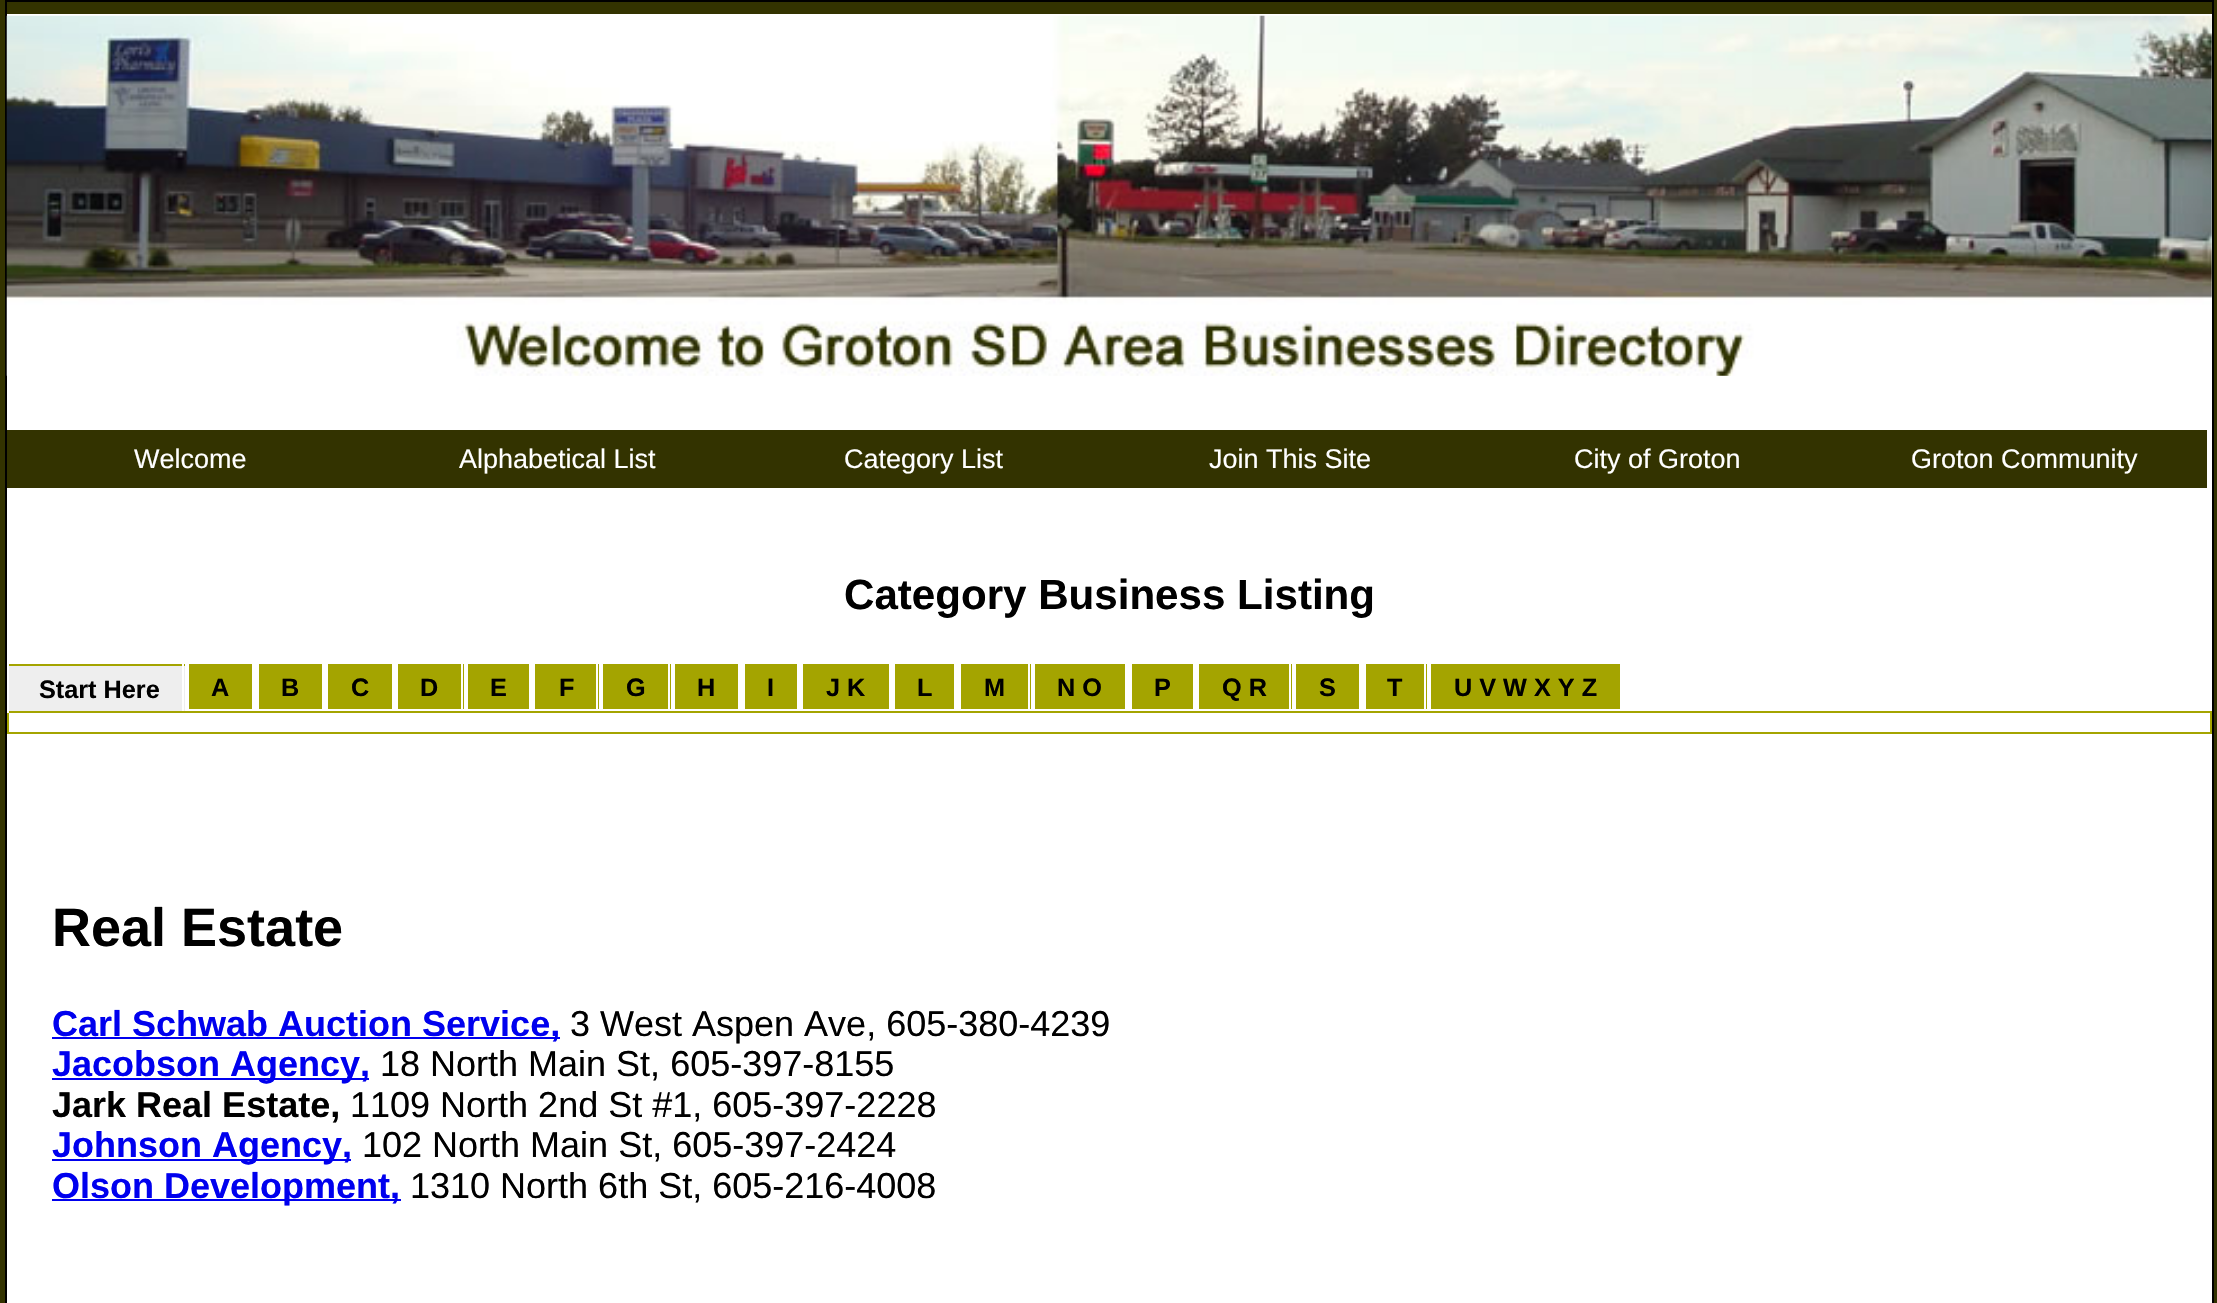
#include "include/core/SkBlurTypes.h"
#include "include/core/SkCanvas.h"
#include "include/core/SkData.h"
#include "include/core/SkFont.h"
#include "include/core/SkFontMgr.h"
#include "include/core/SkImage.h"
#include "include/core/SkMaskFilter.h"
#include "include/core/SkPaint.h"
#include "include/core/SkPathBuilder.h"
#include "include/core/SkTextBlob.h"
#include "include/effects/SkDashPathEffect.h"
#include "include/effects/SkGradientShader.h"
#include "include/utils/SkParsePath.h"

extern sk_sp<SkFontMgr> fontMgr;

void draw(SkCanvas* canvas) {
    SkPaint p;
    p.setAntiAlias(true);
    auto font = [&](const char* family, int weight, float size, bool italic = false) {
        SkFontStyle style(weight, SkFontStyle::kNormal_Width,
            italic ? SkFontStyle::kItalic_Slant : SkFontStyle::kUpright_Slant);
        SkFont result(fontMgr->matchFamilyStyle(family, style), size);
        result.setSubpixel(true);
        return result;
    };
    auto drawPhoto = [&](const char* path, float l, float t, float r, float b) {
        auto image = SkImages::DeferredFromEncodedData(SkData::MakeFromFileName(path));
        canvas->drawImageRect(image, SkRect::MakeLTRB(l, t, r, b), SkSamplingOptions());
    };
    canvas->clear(0xFF333300);
    p.setColor(0xFFFFFFFF);
    canvas->drawRect(SkRect::MakeLTRB(7, 14, 2212, 1303), p);
    p.setStyle(SkPaint::kStroke_Style);
    p.setStrokeWidth(2);
    p.setColor(0xFF000000);
    canvas->drawRect(SkRect::MakeLTRB(6, 1, 2213, 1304), p);
    drawPhoto("media/1.png", 6, 15, 2212, 376);
    p.setStyle(SkPaint::kFill_Style);
    p.setColor(0xFF333300);
    canvas->drawRect(SkRect::MakeLTRB(7, 430, 2207, 488), p);
    auto font1 = font("Liberation Sans", 400, 27);
    p.setColor(0xFFFFFFFF);
    {
        const struct { const char* s; float x, y; } items[] = {
            {"Welcome", 134, 468},
            {"Alphabetical List", 459, 468},
            {"Category List", 844, 468},
            {"Join This Site", 1209, 468},
            {"City of Groton", 1574, 468},
            {"Groton Community", 1911, 468},
        };
        for (auto [s, x, y] : items) {
            canvas->drawString(s, x, y, font1, p);
        }
    }
    auto font2 = font("Liberation Sans", 700, 42.1f);
    p.setColor(0xFF000000);
    canvas->drawString("Category Business Listing", 844, 609, font2, p);
    p.setColor(0xFFEEEEEE);
    canvas->drawRect(SkRect::MakeLTRB(9, 666, 185, 711), p);
    p.setColor(0xFFA4A400);
    canvas->drawRect(SkRect::MakeLTRB(7, 664, 185, 666), p);
    p.setStyle(SkPaint::kStroke_Style);
    canvas->drawRect(SkRect::MakeLTRB(8, 712, 2211, 733), p);
    p.setStyle(SkPaint::kFill_Style);
    {
        const struct { float l, t, r, b; SkColor color; } items[] = {
            {182, 664, 184, 713, 0xFFFFFFFF},
            {182, 711, 185, 713, 0xFFA4A400},
            {7, 664, 9, 713, 0xFFFFFFFF},
        };
        for (auto [l, t, r, b, color] : items) {
            p.setColor(color);
            canvas->drawRect(SkRect::MakeLTRB(l, t, r, b), p);
        }
    }
    auto font3 = font("Liberation Sans", 700, 25.25f);
    p.setColor(0xFF000000);
    canvas->drawString("Start Here", 39, 698, font3, p);
    p.setColor(0xFFA4A400);
    canvas->drawRect(SkRect::MakeLTRB(189, 664, 252, 709), p);
    p.setColor(0xFF000000);
    canvas->drawString("A", 211, 696, font3, p);
    p.setColor(0xFFA4A400);
    canvas->drawRect(SkRect::MakeLTRB(259, 664, 322, 709), p);
    p.setColor(0xFF000000);
    canvas->drawString("B", 281, 696, font3, p);
    p.setColor(0xFFA4A400);
    canvas->drawRect(SkRect::MakeLTRB(328, 664, 392, 709), p);
    p.setColor(0xFF000000);
    canvas->drawString("C", 351, 696, font3, p);
    p.setColor(0xFFA4A400);
    canvas->drawRect(SkRect::MakeLTRB(398, 664, 464, 709), p);
    p.setColor(0xFFFFFFFF);
    canvas->drawRect(SkRect::MakeLTRB(461, 664, 463, 709), p);
    p.setColor(0xFF000000);
    canvas->drawString("D", 420, 696, font3, p);
    p.setColor(0xFFA4A400);
    canvas->drawRect(SkRect::MakeLTRB(468, 664, 529, 709), p);
    p.setColor(0xFF000000);
    canvas->drawString("E", 490, 696, font3, p);
    p.setColor(0xFFA4A400);
    canvas->drawRect(SkRect::MakeLTRB(535, 664, 599, 709), p);
    p.setColor(0xFFFFFFFF);
    canvas->drawRect(SkRect::MakeLTRB(596, 664, 598, 709), p);
    p.setColor(0xFF000000);
    canvas->drawString("F", 559, 696, font3, p);
    p.setColor(0xFFA4A400);
    canvas->drawRect(SkRect::MakeLTRB(603, 664, 671, 709), p);
    p.setColor(0xFFFFFFFF);
    canvas->drawRect(SkRect::MakeLTRB(668, 664, 670, 709), p);
    p.setColor(0xFF000000);
    canvas->drawString("G", 626, 696, font3, p);
    p.setColor(0xFFA4A400);
    canvas->drawRect(SkRect::MakeLTRB(675, 664, 738, 709), p);
    p.setColor(0xFF000000);
    canvas->drawString("H", 697, 696, font3, p);
    p.setColor(0xFFA4A400);
    canvas->drawRect(SkRect::MakeLTRB(745, 664, 797, 709), p);
    p.setColor(0xFF000000);
    canvas->drawString("I", 767, 696, font3, p);
    p.setColor(0xFFA4A400);
    canvas->drawRect(SkRect::MakeLTRB(803, 664, 889, 709), p);
    p.setColor(0xFF000000);
    canvas->drawString("J K", 826, 696, font3, p);
    p.setColor(0xFFA4A400);
    canvas->drawRect(SkRect::MakeLTRB(895, 664, 954, 709), p);
    p.setColor(0xFF000000);
    canvas->drawString("L", 917, 696, font3, p);
    p.setColor(0xFFA4A400);
    canvas->drawRect(SkRect::MakeLTRB(961, 664, 1031, 709), p);
    p.setColor(0xFFFFFFFF);
    canvas->drawRect(SkRect::MakeLTRB(1028, 664, 1030, 709), p);
    p.setColor(0xFF000000);
    canvas->drawString("M", 984, 696, font3, p);
    p.setColor(0xFFA4A400);
    canvas->drawRect(SkRect::MakeLTRB(1035, 664, 1125, 709), p);
    p.setColor(0xFF000000);
    canvas->drawString("N O", 1057, 696, font3, p);
    p.setColor(0xFFA4A400);
    canvas->drawRect(SkRect::MakeLTRB(1132, 664, 1193, 709), p);
    p.setColor(0xFF000000);
    canvas->drawString("P", 1154, 696, font3, p);
    p.setColor(0xFFA4A400);
    canvas->drawRect(SkRect::MakeLTRB(1199, 664, 1292, 709), p);
    p.setColor(0xFFFFFFFF);
    canvas->drawRect(SkRect::MakeLTRB(1289, 664, 1291, 709), p);
    p.setColor(0xFF000000);
    canvas->drawString("Q R", 1222, 696, font3, p);
    p.setColor(0xFFA4A400);
    canvas->drawRect(SkRect::MakeLTRB(1296, 664, 1359, 709), p);
    p.setColor(0xFF000000);
    canvas->drawString("S", 1319, 696, font3, p);
    p.setColor(0xFFA4A400);
    canvas->drawRect(SkRect::MakeLTRB(1366, 664, 1427, 709), p);
    p.setColor(0xFFFFFFFF);
    canvas->drawRect(SkRect::MakeLTRB(1424, 664, 1426, 709), p);
    p.setColor(0xFF000000);
    canvas->drawString("T", 1387, 696, font3, p);
    p.setColor(0xFFA4A400);
    canvas->drawRect(SkRect::MakeLTRB(1431, 664, 1620, 709), p);
    p.setColor(0xFF000000);
    canvas->drawString("U V W X Y Z", 1454, 696, font3, p);
    auto font4 = font("Liberation Sans", 700, 54);
    canvas->drawString("Real Estate", 52, 946, font4, p);
    p.setColor(0xFF0000EE);
    canvas->drawRect(SkRect::MakeLTRB(52, 1037, 560, 1039), p);
    auto font5 = font("Liberation Sans", 700, 36);
    canvas->drawString("Carl Schwab Auction Service,", 52, 1036, font5, p);
    auto font6 = font("Liberation Sans", 400, 36);
    p.setColor(0xFF000000);
    canvas->drawString("3 West Aspen Ave, 605-380-4239", 570, 1036, font6, p);
    p.setColor(0xFF0000EE);
    canvas->drawRect(SkRect::MakeLTRB(52, 1078, 369, 1080), p);
    canvas->drawString("Jacobson Agency,", 52, 1076, font5, p);
    p.setColor(0xFF000000);
    canvas->drawString("18 North Main St, 605-397-8155", 380, 1076, font6, p);
    canvas->drawString("Jark Real Estate,", 52, 1117, font5, p);
    canvas->drawString("1109 North 2nd St #1, 605-397-2228", 350, 1117, font6, p);
    p.setColor(0xFF0000EE);
    canvas->drawRect(SkRect::MakeLTRB(52, 1159, 351, 1161), p);
    canvas->drawString("Johnson Agency,", 52, 1157, font5, p);
    p.setColor(0xFF000000);
    canvas->drawString("102 North Main St, 605-397-2424", 362, 1157, font6, p);
    p.setColor(0xFF0000EE);
    canvas->drawRect(SkRect::MakeLTRB(52, 1199, 401, 1201), p);
    canvas->drawString("Olson Development,", 52, 1198, font5, p);
    p.setColor(0xFF000000);
    canvas->drawString("1310 North 6th St, 605-216-4008", 410, 1198, font6, p);
}
